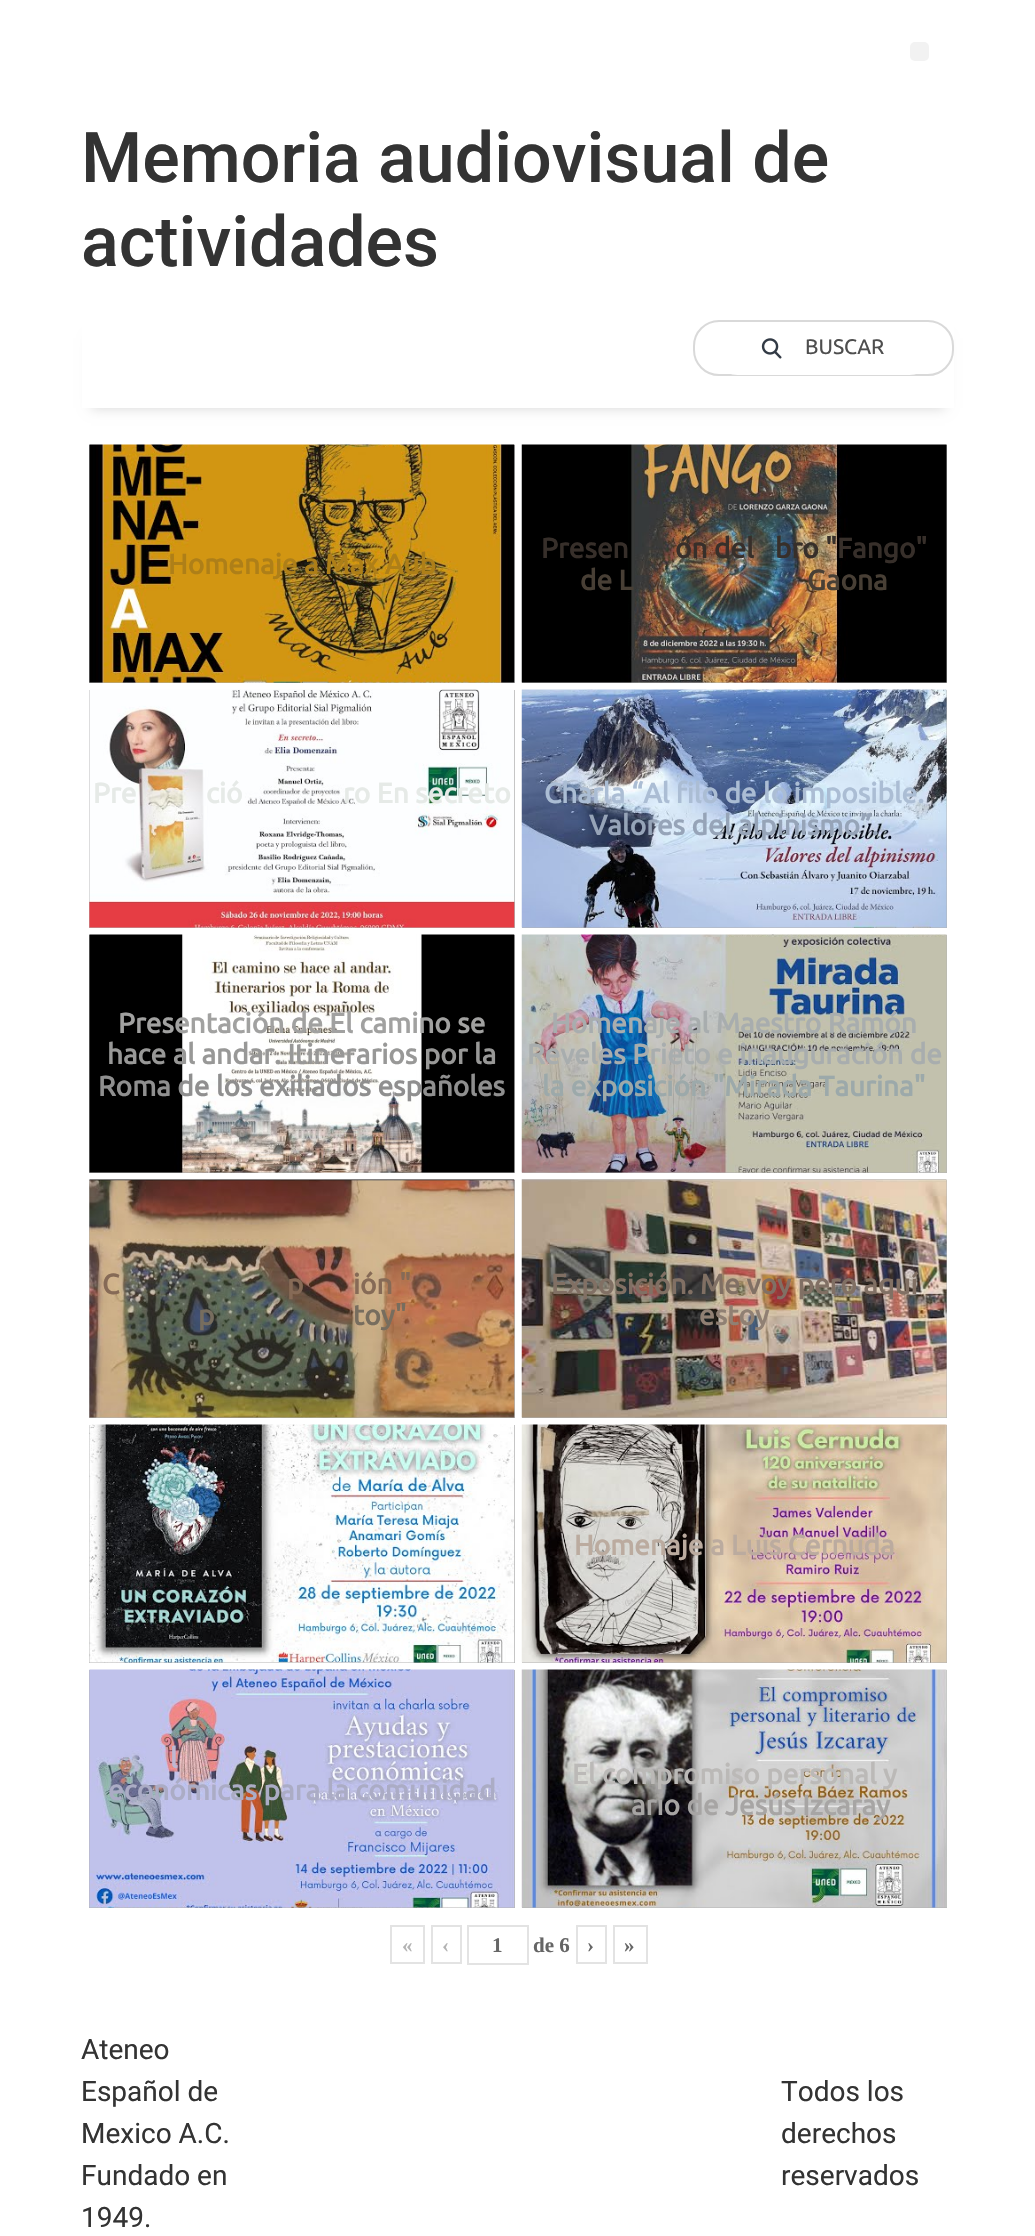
#include "include/core/SkBlurTypes.h"
#include "include/core/SkCanvas.h"
#include "include/core/SkData.h"
#include "include/core/SkFont.h"
#include "include/core/SkFontMgr.h"
#include "include/core/SkImage.h"
#include "include/core/SkMaskFilter.h"
#include "include/core/SkPaint.h"
#include "include/core/SkPathBuilder.h"
#include "include/core/SkTextBlob.h"
#include "include/effects/SkDashPathEffect.h"
#include "include/effects/SkGradientShader.h"
#include "include/utils/SkParsePath.h"

extern sk_sp<SkFontMgr> fontMgr;

void draw(SkCanvas* canvas) {
    SkPaint p;
    p.setAntiAlias(true);
    auto font = [&](const char* family, int weight, float size, bool italic = false) {
        SkFontStyle style(weight, SkFontStyle::kNormal_Width,
            italic ? SkFontStyle::kItalic_Slant : SkFontStyle::kUpright_Slant);
        SkFont result(fontMgr->matchFamilyStyle(family, style), size);
        result.setSubpixel(true);
        return result;
    };
    auto drawPhoto = [&](const char* path, float l, float t, float r, float b) {
        auto image = SkImages::DeferredFromEncodedData(SkData::MakeFromFileName(path));
        canvas->drawImageRect(image, SkRect::MakeLTRB(l, t, r, b), SkSamplingOptions());
    };
    canvas->clear(0xFFFFFFFF);
    p.setColor(0xFFF2F2F2);
    canvas->drawRoundRect(SkRect::MakeLTRB(910, 42, 929, 61), 5, 5, p);
    auto font1 = font("Roboto", 500, 70);
    p.setColor(0xFF333333);
    canvas->drawString("Memoria audiovisual de", 81, 182, font1, p);
    canvas->drawString("actividades", 81, 266, font1, p);
    canvas->save();
    canvas->clipPath(SkPathBuilder(SkPathFillType::kEvenOdd).moveTo(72, 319).lineTo(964, 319).lineTo(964, 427).lineTo(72, 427).close().moveTo(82, 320).lineTo(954, 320).lineTo(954, 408).lineTo(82, 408).close().detach(), true);
    p.setColor(0x29000000);
    p.setMaskFilter(SkMaskFilter::MakeBlur(kNormal_SkBlurStyle, 6));
    canvas->drawRect(SkRect::MakeLTRB(91, 338, 945, 408), p);
    p.setMaskFilter(nullptr);
    canvas->restore();
    p.setStyle(SkPaint::kStroke_Style);
    p.setStrokeWidth(2);
    p.setColor(0xFFD9D9D9);
    canvas->drawRoundRect(SkRect::MakeLTRB(694, 321, 953, 375), 25, 25, p);
    p.setStyle(SkPaint::kFill_Style);
    p.setColor(0xFFFFFFFF);
    canvas->drawRoundRect(SkRect::MakeLTRB(712, 324, 935, 375), 25.5f, 25.5f, p);
    drawPhoto("media/1.png", 761, 338, 782, 359);
    auto font2 = font("Ubuntu", 400, 21);
    p.setColor(0xFF4E4E4E);
    canvas->drawString("BUSCAR", 805, 354, font2, p);
    p.setColor(0xFFB3B3B3);
    canvas->drawRect(SkRect::MakeLTRB(89, 445, 515, 683), p);
    drawPhoto("media/2.png", 89, 444, 515, 683);
    auto font3 = font("Ubuntu", 700, 28);
    p.setColor(0xFFAE7F18);
    canvas->drawString("Homenaje a Max Aub", 168, 574, font3, p);
    p.setColor(0xFFB3B3B3);
    canvas->drawRect(SkRect::MakeLTRB(522, 445, 947, 683), p);
    drawPhoto("media/3.png", 521, 444, 947, 683);
    p.setColor(0xFF372F2A);
    {
        const struct { const char* s; float x, y; } items[] = {
            {"Presen", 541, 558},
            {"ón del", 675, 558},
            {"bro \"Fango\"", 775, 558},
        };
        for (auto [s, x, y] : items) {
            canvas->drawString(s, x, y, font3, p);
        }
    }
    p.setColor(0xFF483F35);
    canvas->drawString("de L", 580, 590, font3, p);
    canvas->drawString("Gaona", 807, 590, font3, p);
    p.setColor(0xFFB3B3B3);
    canvas->drawRect(SkRect::MakeLTRB(89, 690, 515, 928), p);
    drawPhoto("media/4.png", 89, 689, 515, 928);
    p.setColor(0xFFE6EAE7);
    {
        const struct { const char* s; float x, y; } items[] = {
            {"Pre", 93, 803},
            {"ció", 206, 803},
            {"ro En secreto", 343, 803},
        };
        for (auto [s, x, y] : items) {
            canvas->drawString(s, x, y, font3, p);
        }
    }
    p.setColor(0xFFB3B3B3);
    canvas->drawRect(SkRect::MakeLTRB(522, 690, 947, 928), p);
    drawPhoto("media/5.png", 521, 689, 947, 928);
    p.setColor(0xFFABBDD4);
    canvas->drawString("Charla “Al filo de lo imposible.", 544, 803, font3, p);
    p.setColor(0xFF96A4B8);
    canvas->drawString("Valores del alpinismo”.", 589, 835, font3, p);
    p.setColor(0xFFB3B3B3);
    canvas->drawRect(SkRect::MakeLTRB(89, 935, 515, 1173), p);
    drawPhoto("media/6.png", 89, 934, 515, 1173);
    p.setColor(0xFFA1A1A0);
    canvas->drawString("Presentación de El camino se", 118, 1033, font3, p);
    p.setColor(0xFF989897);
    canvas->drawString("hace al andar. Itinerarios por la", 107, 1064, font3, p);
    p.setColor(0xFF8F8F8F);
    canvas->drawString("Roma de los exiliados españoles", 98, 1096, font3, p);
    p.setColor(0xFFB3B3B3);
    canvas->drawRect(SkRect::MakeLTRB(522, 935, 947, 1173), p);
    drawPhoto("media/7.png", 521, 934, 947, 1173);
    p.setColor(0xFFA8ADAE);
    canvas->drawString("Homenaje al Maestro Ramón", 551, 1033, font3, p);
    canvas->drawString("Reveles Prieto e inauguración de", 527, 1064, font3, p);
    p.setColor(0xFF9CA9AA);
    canvas->drawString("la exposición \"Mirada Taurina\"", 542, 1096, font3, p);
    p.setColor(0xFFB3B3B3);
    canvas->drawRect(SkRect::MakeLTRB(89, 1180, 515, 1418), p);
    drawPhoto("media/8.png", 89, 1179, 515, 1418);
    p.setColor(0xFF866A56);
    {
        const struct { const char* s; float x, y; } items[] = {
            {"C", 102, 1294},
            {"p", 287, 1294},
            {"ión \"", 353, 1294},
        };
        for (auto [s, x, y] : items) {
            canvas->drawString(s, x, y, font3, p);
        }
    }
    p.setColor(0xFF776D5E);
    canvas->drawString("p", 198, 1325, font3, p);
    canvas->drawString("toy\"", 353, 1325, font3, p);
    p.setColor(0xFFB3B3B3);
    canvas->drawRect(SkRect::MakeLTRB(522, 1180, 947, 1418), p);
    drawPhoto("media/9.png", 521, 1179, 947, 1418);
    p.setColor(0xFF817064);
    canvas->drawString("Exposición. Me voy pero aquí", 551, 1294, font3, p);
    p.setColor(0xFF908073);
    canvas->drawString("estoy", 699, 1325, font3, p);
    p.setColor(0xFFB3B3B3);
    canvas->drawRect(SkRect::MakeLTRB(89, 1425, 515, 1663), p);
    drawPhoto("media/10.png", 89, 1424, 515, 1663);
    canvas->drawRect(SkRect::MakeLTRB(522, 1425, 947, 1663), p);
    drawPhoto("media/11.png", 521, 1424, 947, 1663);
    p.setColor(0xFFBBAB9F);
    canvas->drawString("Homenaje a Luis Cernuda", 574, 1555, font3, p);
    p.setColor(0xFFB3B3B3);
    canvas->drawRect(SkRect::MakeLTRB(89, 1670, 515, 1908), p);
    drawPhoto("media/12.png", 89, 1669, 515, 1908);
    p.setColor(0xFFBEB7D2);
    canvas->drawString("l", 170, 1768, font3, p);
    p.setColor(0xFFABACC5);
    canvas->drawString("económicas para la comunidad", 108, 1800, font3, p);
    p.setColor(0xFFB3B3B3);
    canvas->drawRect(SkRect::MakeLTRB(522, 1670, 947, 1908), p);
    drawPhoto("media/13.png", 521, 1669, 947, 1908);
    p.setColor(0xFFBBB9B7);
    canvas->drawString("El compromiso personal y", 572, 1784, font3, p);
    p.setColor(0xFFA7A5A4);
    canvas->drawString("ario de Jesús Izcaray", 631, 1815, font3, p);
    p.setStyle(SkPaint::kStroke_Style);
    p.setColor(0xFFE3E3E3);
    canvas->drawRect(SkRect::MakeLTRB(391, 1926, 424, 1963), p);
    auto font4 = font("Liberation Serif", 700, 21);
    p.setStyle(SkPaint::kFill_Style);
    p.setColor(0xFFB3B3B3);
    canvas->drawString("«", 402, 1952, font4, p);
    p.setStyle(SkPaint::kStroke_Style);
    p.setColor(0xFFE3E3E3);
    canvas->drawRect(SkRect::MakeLTRB(432, 1926, 461, 1963), p);
    p.setStyle(SkPaint::kFill_Style);
    p.setColor(0xFFB3B3B3);
    canvas->drawString("‹", 442, 1952, font4, p);
    p.setStyle(SkPaint::kStroke_Style);
    p.setColor(0xFFE3E3E3);
    canvas->drawRect(SkRect::MakeLTRB(468, 1926, 528, 1964), p);
    p.setStyle(SkPaint::kFill_Style);
    p.setColor(0xFF666666);
    canvas->drawString("1", 492, 1952, font4, p);
    canvas->drawString("de 6", 533, 1952, font4, p);
    p.setStyle(SkPaint::kStroke_Style);
    p.setColor(0xFFE3E3E3);
    canvas->drawRect(SkRect::MakeLTRB(577, 1926, 606, 1963), p);
    p.setStyle(SkPaint::kFill_Style);
    p.setColor(0xFF666666);
    canvas->drawString("›", 587, 1952, font4, p);
    p.setStyle(SkPaint::kStroke_Style);
    p.setColor(0xFFE3E3E3);
    canvas->drawRect(SkRect::MakeLTRB(614, 1926, 647, 1963), p);
    p.setStyle(SkPaint::kFill_Style);
    p.setColor(0xFF666666);
    canvas->drawString("»", 624, 1952, font4, p);
    auto font5 = font("Roboto", 400, 28);
    p.setColor(0xFF333333);
    {
        const struct { const char* s; float x, y; } items[] = {
            {"Ateneo", 81, 2059},
            {"Español de", 81, 2101},
            {"Mexico A.C.", 81, 2143},
            {"Fundado en", 81, 2185},
            {"1949.", 81, 2227},
            {"Todos los", 781, 2101},
            {"derechos", 781, 2143},
            {"reservados", 781, 2185},
        };
        for (auto [s, x, y] : items) {
            canvas->drawString(s, x, y, font5, p);
        }
    }
}
